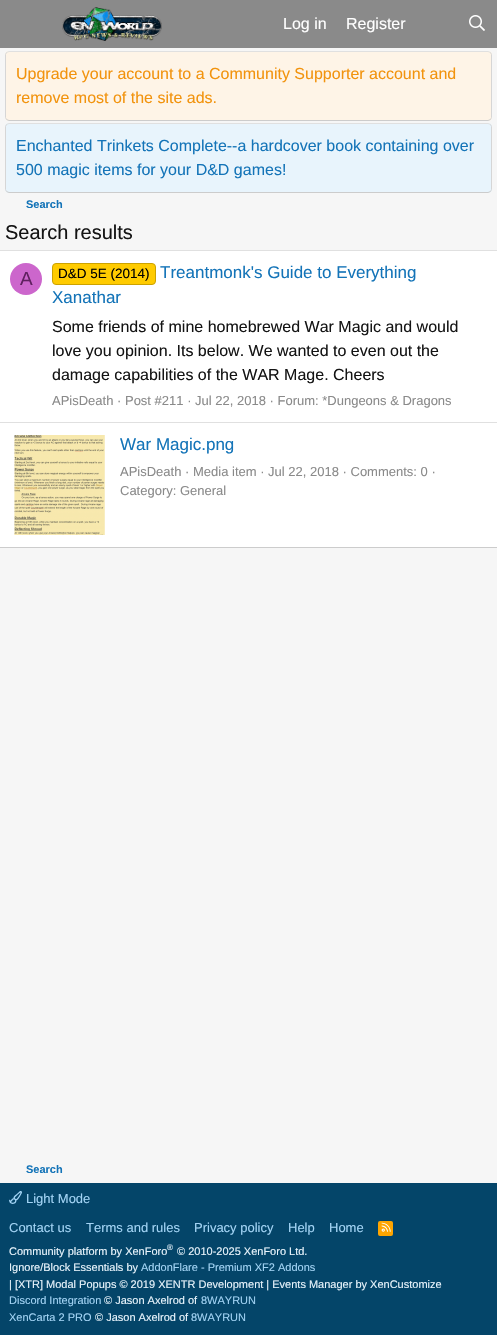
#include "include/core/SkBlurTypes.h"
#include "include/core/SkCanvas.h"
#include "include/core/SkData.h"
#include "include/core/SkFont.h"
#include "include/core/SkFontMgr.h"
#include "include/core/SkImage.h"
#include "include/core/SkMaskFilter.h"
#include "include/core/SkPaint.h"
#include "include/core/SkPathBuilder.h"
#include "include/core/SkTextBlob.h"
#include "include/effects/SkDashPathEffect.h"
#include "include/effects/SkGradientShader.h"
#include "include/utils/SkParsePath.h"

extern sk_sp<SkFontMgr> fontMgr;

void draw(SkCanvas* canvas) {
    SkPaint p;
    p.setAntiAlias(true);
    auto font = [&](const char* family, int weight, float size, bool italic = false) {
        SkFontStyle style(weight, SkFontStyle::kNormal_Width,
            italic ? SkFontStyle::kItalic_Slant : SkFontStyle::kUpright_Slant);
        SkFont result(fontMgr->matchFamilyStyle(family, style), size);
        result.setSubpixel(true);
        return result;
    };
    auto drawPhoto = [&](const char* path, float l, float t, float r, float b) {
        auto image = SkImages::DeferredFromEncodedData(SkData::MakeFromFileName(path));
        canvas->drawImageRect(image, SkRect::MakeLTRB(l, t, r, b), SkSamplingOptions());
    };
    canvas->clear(0xFFF6F6F6);
    p.setColor(0xFF8A8A8A);
    canvas->drawRect(SkRect::MakeLTRB(0, 0, 497, 48), p);
    drawPhoto("media/1.png", 62, 7, 162, 41);
    auto font1 = font("Liberation Sans", 400, 16);
    p.setColor(0xFFFFFFFF);
    canvas->drawString("Log in", 283, 29, font1, p);
    canvas->drawString("Register", 346, 29, font1, p);
    drawPhoto("media/2.png", 469, 15, 485, 31);
    p.setColor(0xFFFEF4E7);
    canvas->drawRoundRect(SkRect::MakeLTRB(5, 51, 492, 121), 4, 4, p);
    p.setStyle(SkPaint::kStroke_Style);
    p.setStrokeWidth(1);
    p.setColor(0xFFE0E0E0);
    canvas->drawPath(SkPathBuilder().moveTo(6.5f, 52.5f).lineTo(9, 51.5f).lineTo(488, 51.5f).lineTo(490.5f, 52.5f).detach(), p);
    p.setColor(0xFFD6D6D6);
    canvas->drawPath(SkPathBuilder().moveTo(490.5f, 52.5f).lineTo(491.5f, 54.5f).lineTo(491.5f, 117.5f).lineTo(490.5f, 119.5f).detach(), p);
    p.setColor(0xFFCCCCCC);
    canvas->drawPath(SkPathBuilder().moveTo(490.5f, 119.5f).lineTo(488, 120.5f).lineTo(9, 120.5f).lineTo(6.5f, 119.5f).detach(), p);
    p.setColor(0xFFD6D6D6);
    canvas->drawPath(SkPathBuilder().moveTo(6.5f, 119.5f).lineTo(5.5f, 117.5f).lineTo(5.5f, 54.5f).lineTo(6.5f, 52.5f).detach(), p);
    p.setStyle(SkPaint::kFill_Style);
    p.setColor(0xFFF2930D);
    canvas->drawString("Upgrade your account to a Community Supporter account and", 16, 79, font1, p);
    canvas->drawString("remove most of the site ads.", 16, 103, font1, p);
    p.setColor(0xFFE8F4FC);
    canvas->drawRoundRect(SkRect::MakeLTRB(5, 123, 492, 193), 4, 4, p);
    p.setStyle(SkPaint::kStroke_Style);
    p.setColor(0xFFE0E0E0);
    canvas->drawPath(SkPathBuilder().moveTo(6.5f, 124.5f).lineTo(9, 123.5f).lineTo(488, 123.5f).lineTo(490.5f, 124.5f).detach(), p);
    p.setColor(0xFFD6D6D6);
    canvas->drawPath(SkPathBuilder().moveTo(490.5f, 124.5f).lineTo(491.5f, 126.5f).lineTo(491.5f, 189.5f).lineTo(490.5f, 191.5f).detach(), p);
    p.setColor(0xFFCCCCCC);
    canvas->drawPath(SkPathBuilder().moveTo(490.5f, 191.5f).lineTo(488, 192.5f).lineTo(9, 192.5f).lineTo(6.5f, 191.5f).detach(), p);
    p.setColor(0xFFD6D6D6);
    canvas->drawPath(SkPathBuilder().moveTo(6.5f, 191.5f).lineTo(5.5f, 189.5f).lineTo(5.5f, 126.5f).lineTo(6.5f, 124.5f).detach(), p);
    p.setStyle(SkPaint::kFill_Style);
    p.setColor(0xFF1474B8);
    canvas->drawString("Enchanted Trinkets Complete--a hardcover book containing over", 16, 151, font1, p);
    canvas->drawString("500 magic items for your D&D games!", 16, 175, font1, p);
    auto font2 = font("Liberation Sans", 700, 11);
    canvas->drawString("Search", 26, 208, font2, p);
    auto font3 = font("Liberation Sans", 400, 20);
    p.setColor(0xFF141414);
    canvas->drawString("Search results", 5, 239, font3, p);
    {
        const struct { float l, t, r, b; SkColor color; } items[] = {
            {0, 251, 497, 547, 0xFFFFFFFF},
            {0, 250, 497, 251, 0xFFE0E0E0},
            {0, 547, 497, 548, 0xFFCCCCCC},
        };
        for (auto [l, t, r, b, color] : items) {
            p.setColor(color);
            canvas->drawRect(SkRect::MakeLTRB(l, t, r, b), p);
        }
    }
    p.setColor(0xFFCC66CC);
    canvas->drawCircle(26, 279, 16, p);
    auto font4 = font("Liberation Sans", 400, 19);
    p.setColor(0xFF602060);
    canvas->drawString("A", 20, 285, font4, p);
    p.setColor(0xFFFFCB00);
    canvas->drawRoundRect(SkRect::MakeLTRB(52.5f, 263.5f, 155.5f, 284.5f), 3.5f, 3.5f, p);
    p.setStyle(SkPaint::kStroke_Style);
    p.setColor(0xFFCCA200);
    canvas->drawRoundRect(SkRect::MakeLTRB(52.5f, 263.5f, 155.5f, 284.5f), 3.5f, 3.5f, p);
    auto font5 = font("Liberation Sans", 400, 13.5f);
    p.setStyle(SkPaint::kFill_Style);
    p.setColor(0xFF000000);
    canvas->drawString("D&D 5E (2014)", 58, 278, font5, p);
    auto font6 = font("Liberation Sans", 400, 17);
    p.setColor(0xFF1474B8);
    canvas->drawString("Treantmonk's Guide to Everything", 160, 278, font6, p);
    canvas->drawString("Xanathar", 52, 303, font6, p);
    p.setColor(0xFF141414);
    {
        const struct { const char* s; float x, y; } items[] = {
            {"Some friends of mine homebrewed War Magic and would", 52, 332},
            {"love you opinion. Its below. We wanted to even out the", 52, 356},
            {"damage capabilities of the WAR Mage. Cheers", 52, 380},
        };
        for (auto [s, x, y] : items) {
            canvas->drawString(s, x, y, font1, p);
        }
    }
    auto font7 = font("Liberation Sans", 400, 13);
    p.setColor(0xFF8A8A8A);
    canvas->drawString("APisDeath · Post #211 · Jul 22, 2018 · Forum: *Dungeons & Dragons", 52, 405, font7, p);
    p.setColor(0xFFE0E0E0);
    canvas->drawRect(SkRect::MakeLTRB(0, 422, 497, 423), p);
    drawPhoto("media/3.png", 14, 435, 105, 535);
    p.setColor(0xFF1474B8);
    canvas->drawString("War Magic.png", 120, 450, font6, p);
    p.setColor(0xFF8A8A8A);
    canvas->drawString("APisDeath · Media item · Jul 22, 2018 · Comments: 0 ·", 120, 476, font7, p);
    canvas->drawString("Category: General", 120, 495, font7, p);
    p.setColor(0xFF1474B8);
    canvas->drawString("Search", 26, 1173, font2, p);
    p.setColor(0xFF044569);
    canvas->drawRect(SkRect::MakeLTRB(0, 1183, 497, 1335), p);
    drawPhoto("media/4.png", 9, 1191, 22, 1204);
    p.setColor(0xFFA3D4F5);
    {
        const struct { const char* s; float x, y; } items[] = {
            {"Light Mode", 26, 1203},
            {"Contact us", 9, 1232},
            {"Terms and rules", 86, 1232},
            {"Privacy policy", 194, 1232},
            {"Help", 288, 1232},
            {"Home", 329, 1232},
        };
        for (auto [s, x, y] : items) {
            canvas->drawString(s, x, y, font7, p);
        }
    }
    p.setColor(0xFFFFA500);
    canvas->drawRoundRect(SkRect::MakeLTRB(378, 1221, 393, 1236), 2, 2, p);
    drawPhoto("media/5.png", 381, 1222, 391, 1232);
    auto font8 = font("Liberation Sans", 400, 11);
    p.setColor(0xFFE8F4FC);
    canvas->drawString("Community platform by XenForo", 9, 1255, font8, p);
    auto font9 = font("Liberation Sans", 400, 8);
    canvas->drawString("®", 167, 1250, font9, p);
    canvas->drawString("© 2010-2025 XenForo Ltd.", 177, 1255, font8, p);
    canvas->drawString("Ignore/Block Essentials by", 9, 1271, font8, p);
    p.setColor(0xFFA3D4F5);
    canvas->drawString("AddonFlare - Premium XF2 Addons", 141, 1271, font8, p);
    p.setColor(0xFFE8F4FC);
    canvas->drawString("| [XTR] Modal Popups © 2019 XENTR Development | Events Manager by XenCustomize", 9, 1288, font8, p);
    p.setColor(0xFFA3D4F5);
    canvas->drawString("Discord Integration", 9, 1304, font8, p);
    p.setColor(0xFFE8F4FC);
    canvas->drawString("© Jason Axelrod of", 104, 1304, font8, p);
    p.setColor(0xFFA3D4F5);
    canvas->drawString("8WAYRUN", 201, 1304, font8, p);
    canvas->drawString("XenCarta 2 PRO", 9, 1321, font8, p);
    p.setColor(0xFFE8F4FC);
    canvas->drawString("© Jason Axelrod of", 95, 1321, font8, p);
    p.setColor(0xFFA3D4F5);
    canvas->drawString("8WAYRUN", 191, 1321, font8, p);
}
